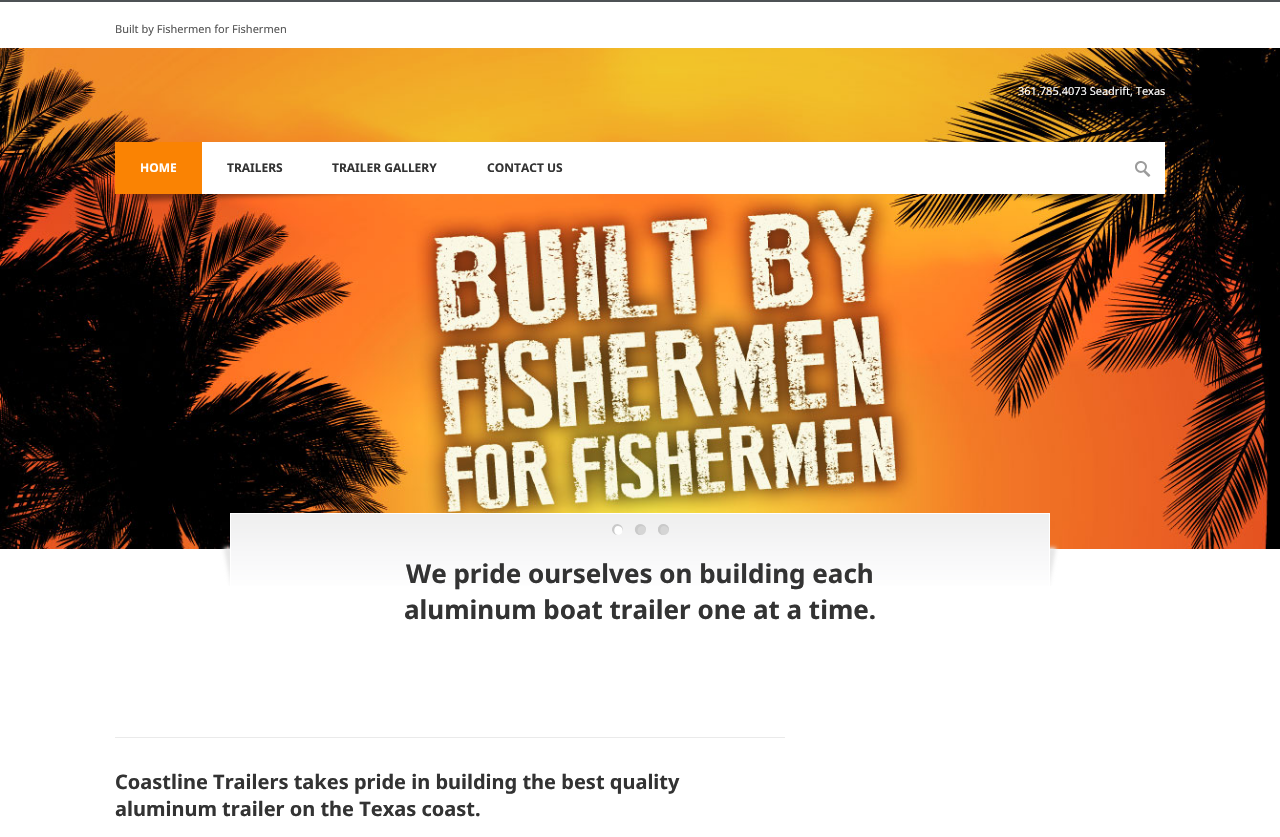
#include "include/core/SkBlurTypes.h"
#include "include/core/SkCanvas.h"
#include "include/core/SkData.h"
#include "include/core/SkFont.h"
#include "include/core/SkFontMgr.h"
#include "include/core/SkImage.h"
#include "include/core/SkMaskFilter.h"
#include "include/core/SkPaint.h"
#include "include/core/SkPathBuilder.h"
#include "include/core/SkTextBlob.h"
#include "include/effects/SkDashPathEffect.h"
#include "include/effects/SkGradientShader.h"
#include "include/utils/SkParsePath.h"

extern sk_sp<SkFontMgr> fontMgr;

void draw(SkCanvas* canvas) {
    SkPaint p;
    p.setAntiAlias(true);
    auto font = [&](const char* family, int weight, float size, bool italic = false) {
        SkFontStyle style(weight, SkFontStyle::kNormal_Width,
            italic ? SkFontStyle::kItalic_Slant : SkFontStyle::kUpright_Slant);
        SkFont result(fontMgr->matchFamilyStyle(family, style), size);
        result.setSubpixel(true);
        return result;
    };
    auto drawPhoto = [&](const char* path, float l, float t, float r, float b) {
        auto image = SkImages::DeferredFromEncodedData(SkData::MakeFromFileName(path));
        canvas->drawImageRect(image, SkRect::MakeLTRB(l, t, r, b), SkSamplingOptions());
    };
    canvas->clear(0xFFFFFFFF);
    p.setColor(0xFF4E5255);
    canvas->drawRect(SkRect::MakeLTRB(0, 0, 1280, 2), p);
    auto font1 = font("Noto Sans", 400, 11);
    p.setColor(0xFF555555);
    canvas->drawString("Built by Fishermen for Fishermen", 115, 33, font1, p);
    drawPhoto("media/3.png", 0, 48, 1280, 549);
    p.setColor(0x0D000000);
    canvas->drawRect(SkRect::MakeLTRB(0, 48, 1275, 168), p);
    p.setColor(0xFFFFFFFF);
    canvas->drawString("361.785.4073 Seadrift, Texas", 1018, 95, font1, p);
    canvas->drawRect(SkRect::MakeLTRB(202, 142, 1165, 194), p);
    p.setColor(0xFFFA8303);
    canvas->drawRect(SkRect::MakeLTRB(115, 142, 202, 194), p);
    auto font2 = font("Noto Sans", 700, 12);
    p.setColor(0xFFFFFFFF);
    canvas->drawString("HOME", 140, 172, font2, p);
    p.setColor(0xFF333333);
    {
        const struct { const char* s; float x, y; } items[] = {
            {"TRAILERS", 227, 172},
            {"TRAILER GALLERY", 332, 172},
            {"CONTACT US", 487, 172},
        };
        for (auto [s, x, y] : items) {
            canvas->drawString(s, x, y, font2, p);
        }
    }
    drawPhoto("media/1.png", 1135, 161, 1151, 177);
    drawPhoto("media/2.png", 129, 194, 1148, 205);
    drawPhoto("media/4.png", 220, 513, 1060, 586);
    p.setColor(0xFFFFFFFF);
    canvas->drawCircle(617.5f, 529.5f, 5.5f, p);
    p.setColor(0xFFC9C9C9);
    canvas->drawPath(SkPathBuilder().moveTo(618, 526).cubicTo(622, 526, 623.5f, 530, 622, 532.5f).cubicTo(626, 527, 617, 520.5f, 613, 526.5f).cubicTo(612, 527.5f, 612, 529, 612, 530.5f).cubicTo(612.5f, 533, 615, 535, 618, 535).cubicTo(613, 534.5f, 613, 526, 618, 526).close().detach(), p);
    p.setColor(0xFFD5D5D5);
    canvas->drawCircle(640.5f, 529.5f, 5.5f, p);
    p.setColor(0xFFC9C9C9);
    canvas->drawPath(SkPathBuilder().moveTo(642, 526).cubicTo(645, 526, 646, 529, 645.5f, 531.5f).cubicTo(648, 524, 636.5f, 521, 635, 528.5f).cubicTo(634.5f, 530, 635.5f, 532, 636.5f, 533.5f).cubicTo(638, 534.5f, 639.5f, 535, 641, 535).cubicTo(636, 534, 636.5f, 526, 642, 526).close().detach(), p);
    p.setColor(0xFFD5D5D5);
    canvas->drawCircle(663.5f, 529.5f, 5.5f, p);
    p.setColor(0xFFC9C9C9);
    canvas->drawPath(SkPathBuilder().moveTo(664, 526).cubicTo(668, 526, 669.5f, 530, 668, 532.5f).cubicTo(672, 527, 663, 520.5f, 659, 526.5f).cubicTo(658, 527.5f, 658, 529, 658, 530.5f).cubicTo(658.5f, 533, 661, 535, 664, 535).cubicTo(659, 534.5f, 659, 526, 664, 526).close().detach(), p);
    auto font3 = font("Noto Sans", 700, 26);
    p.setColor(0xFF333333);
    canvas->drawString("We pride ourselves on building each", 406, 583, font3, p);
    canvas->drawString("aluminum boat trailer one at a time.", 404, 619, font3, p);
    p.setColor(0xFFEAEAEA);
    canvas->drawRect(SkRect::MakeLTRB(115, 737, 785, 738), p);
    auto font4 = font("Noto Sans", 700, 20);
    p.setColor(0xFF333333);
    canvas->drawString("Coastline Trailers takes pride in building the best quality", 115, 789, font4, p);
    canvas->drawString("aluminum trailer on the Texas coast.", 115, 816, font4, p);
}
